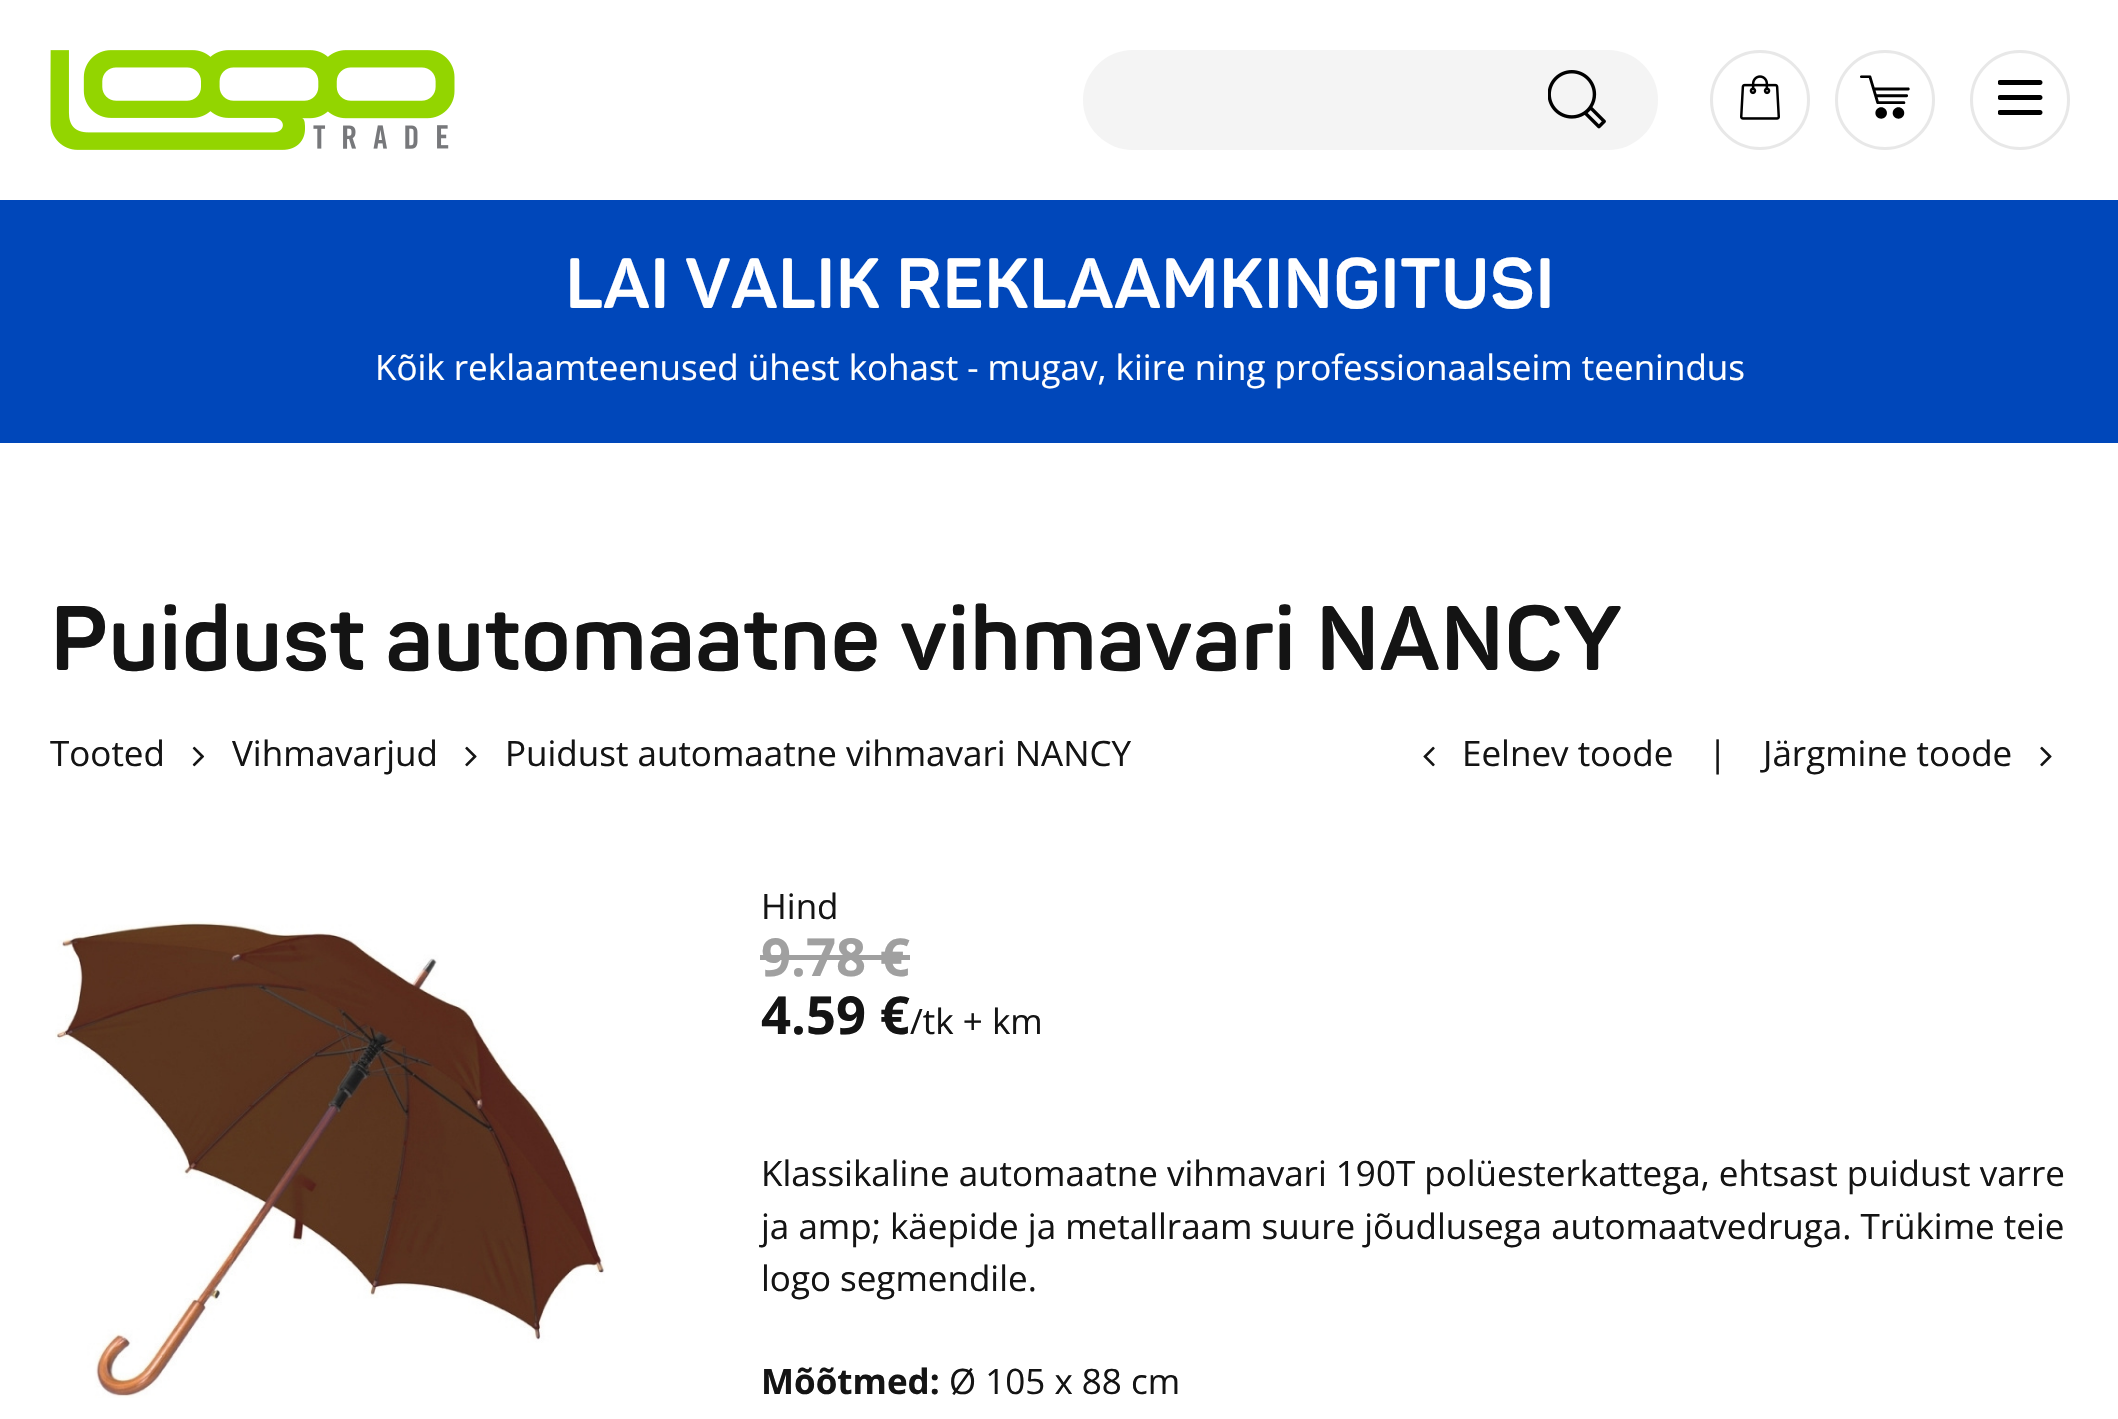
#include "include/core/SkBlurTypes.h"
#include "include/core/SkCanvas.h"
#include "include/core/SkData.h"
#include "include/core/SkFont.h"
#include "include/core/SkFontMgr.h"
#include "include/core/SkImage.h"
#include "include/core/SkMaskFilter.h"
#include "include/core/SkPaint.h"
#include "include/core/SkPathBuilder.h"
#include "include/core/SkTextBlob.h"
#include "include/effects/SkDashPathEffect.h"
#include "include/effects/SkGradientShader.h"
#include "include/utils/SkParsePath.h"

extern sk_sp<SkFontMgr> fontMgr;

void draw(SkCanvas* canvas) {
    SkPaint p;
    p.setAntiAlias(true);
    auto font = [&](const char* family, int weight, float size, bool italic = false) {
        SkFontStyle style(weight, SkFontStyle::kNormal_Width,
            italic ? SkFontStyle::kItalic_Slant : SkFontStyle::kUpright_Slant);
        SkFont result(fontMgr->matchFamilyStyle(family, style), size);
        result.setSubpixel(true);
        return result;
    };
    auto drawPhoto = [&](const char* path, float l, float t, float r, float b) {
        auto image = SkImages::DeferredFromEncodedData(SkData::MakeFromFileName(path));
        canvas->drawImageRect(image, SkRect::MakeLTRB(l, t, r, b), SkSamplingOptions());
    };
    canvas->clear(0xFFFFFFFF);
    drawPhoto("media/1.png", 50, 50, 455, 150);
    p.setStyle(SkPaint::kStroke_Style);
    p.setStrokeWidth(3);
    p.setColor(0xFFE8E8E8);
    canvas->drawCircle(1760, 100, 48.5f, p);
    drawPhoto("media/2.png", 1740, 75, 1780, 120);
    canvas->drawCircle(1885, 100, 48.5f, p);
    drawPhoto("media/3.png", 1860, 75, 1910, 119);
    canvas->drawCircle(2020, 100, 48.5f, p);
    drawPhoto("media/4.png", 1998, 80, 2043, 115);
    p.setStyle(SkPaint::kFill_Style);
    p.setColor(0xFFF4F4F4);
    canvas->drawRoundRect(SkRect::MakeLTRB(1083, 50, 1658, 150), 50, 50, p);
    drawPhoto("media/5.png", 1548, 70, 1606, 129);
    p.setColor(0xFF0047BA);
    canvas->drawRect(SkRect::MakeLTRB(0, 200, 2118, 443), p);
    auto font1 = font("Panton", 700, 70);
    p.setColor(0xFFFFFFFF);
    canvas->drawString("LAI VALIK REKLAAMKINGITUSI", 565, 308, font1, p);
    auto font2 = font("Open Sans", 400, 35);
    canvas->drawString("Kõik reklaamteenused ühest kohast - mugav, kiire ning professionaalseim teenindus", 375, 380, font2, p);
    auto font3 = font("Panton", 700, 90);
    p.setColor(0xFF141414);
    canvas->drawString("Puidust automaatne vihmavari NANCY", 50, 670, font3, p);
    canvas->drawString("Tooted", 50, 766, font2, p);
    drawPhoto("media/6.png", 192, 746, 205, 767);
    canvas->drawString("Vihmavarjud", 232, 766, font2, p);
    drawPhoto("media/7.png", 465, 746, 477, 767);
    canvas->drawString("Puidust automaatne vihmavari NANCY", 505, 766, font2, p);
    drawPhoto("media/8.png", 1423, 746, 1435, 767);
    {
        const struct { const char* s; float x, y; } items[] = {
            {"Eelnev toode", 1462, 766},
            {"|", 1708, 766},
            {"Järgmine toode", 1763, 766},
        };
        for (auto [s, x, y] : items) {
            canvas->drawString(s, x, y, font2, p);
        }
    }
    drawPhoto("media/7.png", 2040, 746, 2052, 767);
    drawPhoto("media/9.png", 55, 921, 605, 1398);
    canvas->drawString("Hind", 761, 919, font2, p);
    auto font4 = font("Open Sans", 700, 52.5f);
    p.setColor(0xFFA0A0A0);
    canvas->drawString("9.78 €", 761, 976, font4, p);
    canvas->drawRect(SkRect::MakeLTRB(760, 955, 910, 960), p);
    p.setColor(0xFF141414);
    canvas->drawString("4.59 €", 761, 1034, font4, p);
    {
        const struct { const char* s; float x, y; } items[] = {
            {"/tk + km", 910, 1034},
            {"Klassikaline automaatne vihmavari 190T polüesterkattega, ehtsast puidust varre", 761, 1186},
            {"ja amp; käepide ja metallraam suure jõudlusega automaatvedruga. Trükime teie", 761, 1239},
            {"logo segmendile.", 761, 1291},
        };
        for (auto [s, x, y] : items) {
            canvas->drawString(s, x, y, font2, p);
        }
    }
    auto font5 = font("Open Sans", 700, 35);
    canvas->drawString("Mõõtmed:", 761, 1394, font5, p);
    canvas->drawString("Ø 105 x 88 cm", 949, 1394, font2, p);
}
